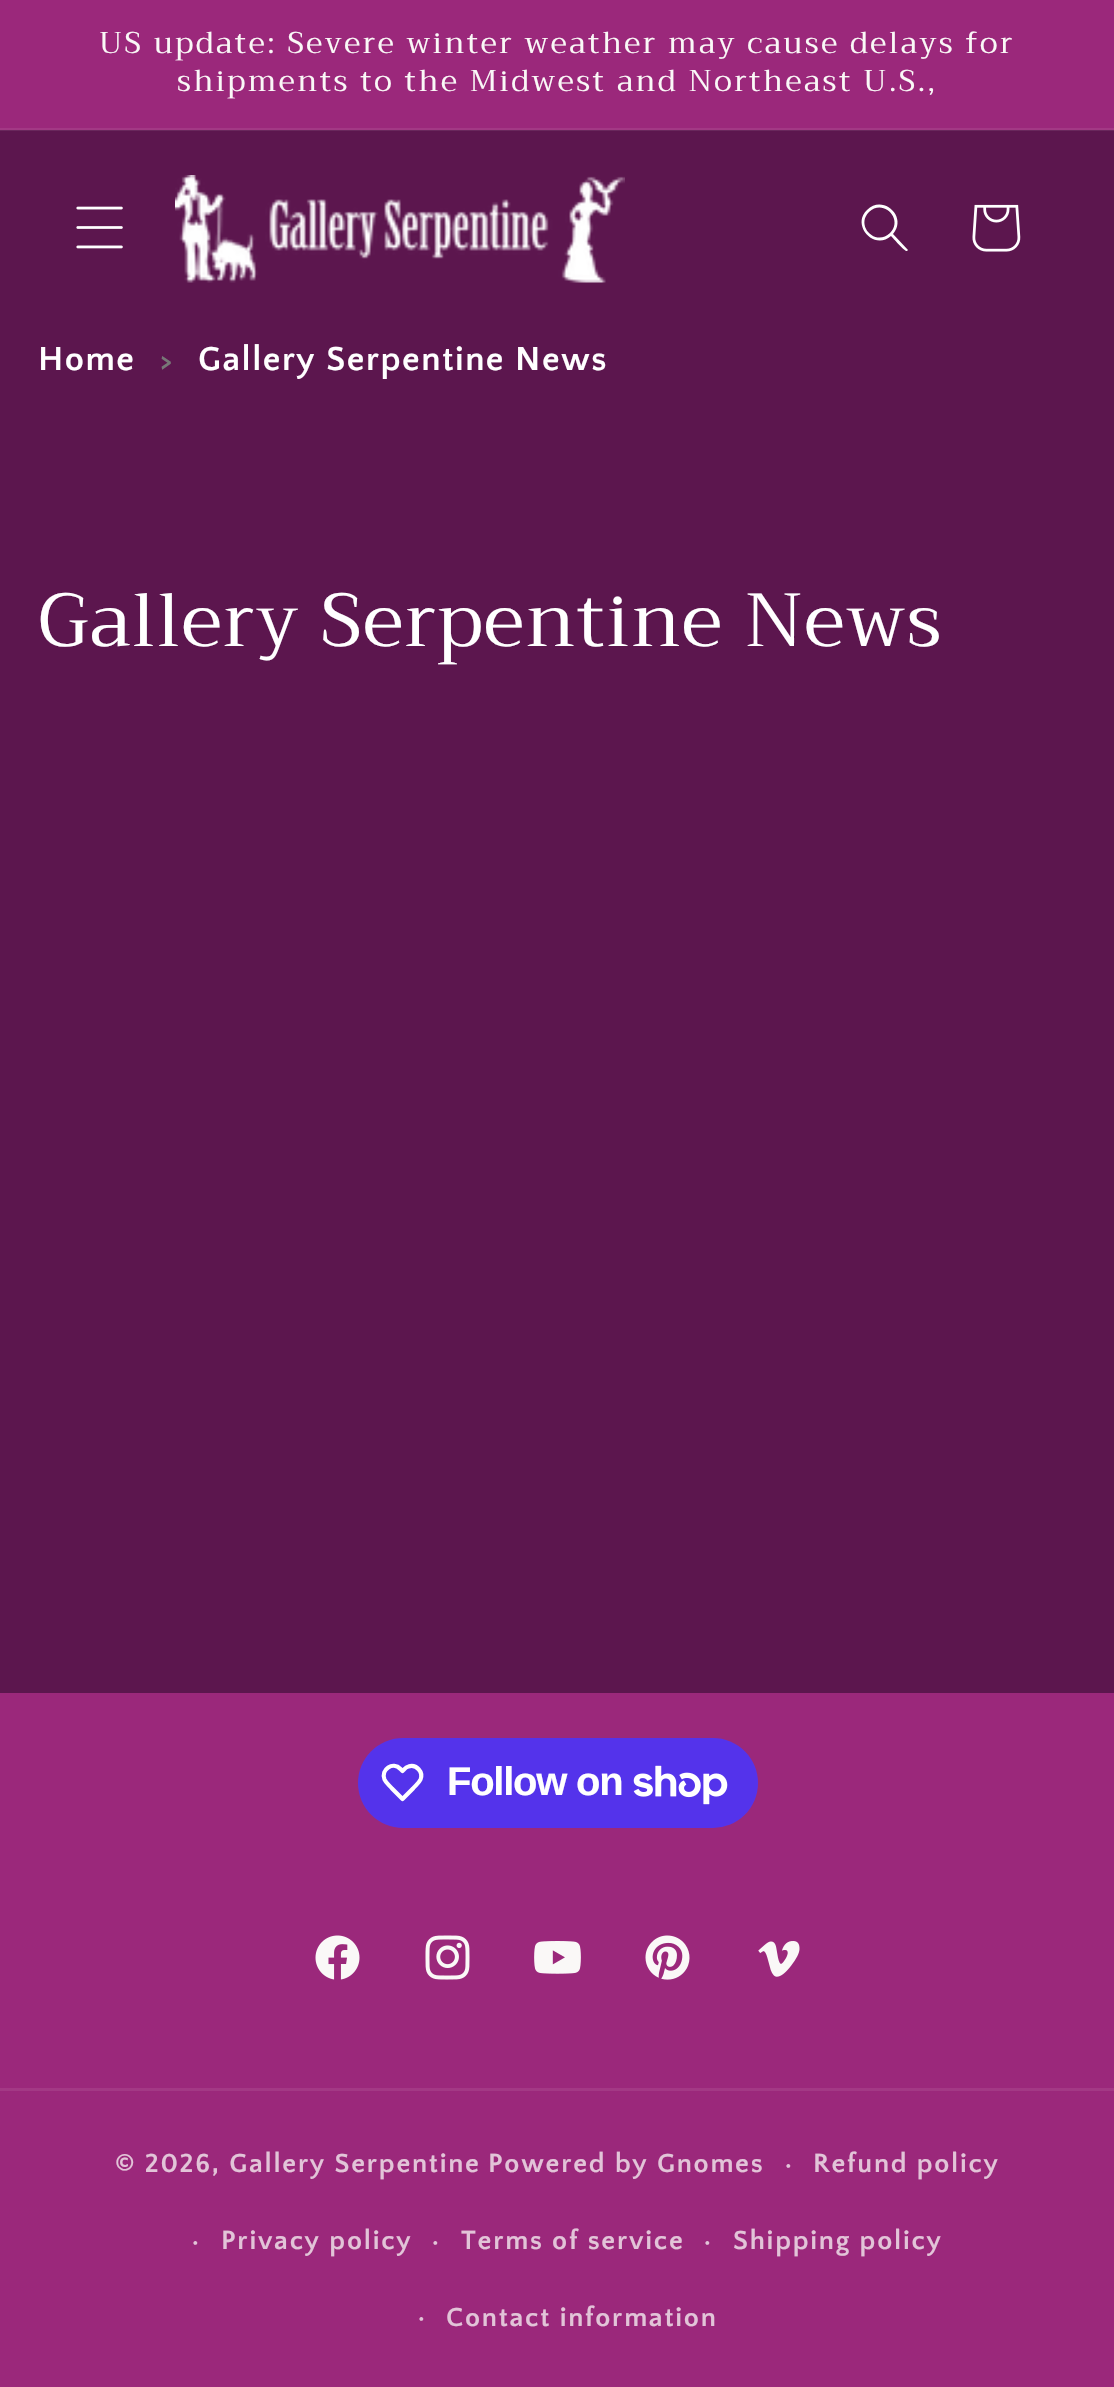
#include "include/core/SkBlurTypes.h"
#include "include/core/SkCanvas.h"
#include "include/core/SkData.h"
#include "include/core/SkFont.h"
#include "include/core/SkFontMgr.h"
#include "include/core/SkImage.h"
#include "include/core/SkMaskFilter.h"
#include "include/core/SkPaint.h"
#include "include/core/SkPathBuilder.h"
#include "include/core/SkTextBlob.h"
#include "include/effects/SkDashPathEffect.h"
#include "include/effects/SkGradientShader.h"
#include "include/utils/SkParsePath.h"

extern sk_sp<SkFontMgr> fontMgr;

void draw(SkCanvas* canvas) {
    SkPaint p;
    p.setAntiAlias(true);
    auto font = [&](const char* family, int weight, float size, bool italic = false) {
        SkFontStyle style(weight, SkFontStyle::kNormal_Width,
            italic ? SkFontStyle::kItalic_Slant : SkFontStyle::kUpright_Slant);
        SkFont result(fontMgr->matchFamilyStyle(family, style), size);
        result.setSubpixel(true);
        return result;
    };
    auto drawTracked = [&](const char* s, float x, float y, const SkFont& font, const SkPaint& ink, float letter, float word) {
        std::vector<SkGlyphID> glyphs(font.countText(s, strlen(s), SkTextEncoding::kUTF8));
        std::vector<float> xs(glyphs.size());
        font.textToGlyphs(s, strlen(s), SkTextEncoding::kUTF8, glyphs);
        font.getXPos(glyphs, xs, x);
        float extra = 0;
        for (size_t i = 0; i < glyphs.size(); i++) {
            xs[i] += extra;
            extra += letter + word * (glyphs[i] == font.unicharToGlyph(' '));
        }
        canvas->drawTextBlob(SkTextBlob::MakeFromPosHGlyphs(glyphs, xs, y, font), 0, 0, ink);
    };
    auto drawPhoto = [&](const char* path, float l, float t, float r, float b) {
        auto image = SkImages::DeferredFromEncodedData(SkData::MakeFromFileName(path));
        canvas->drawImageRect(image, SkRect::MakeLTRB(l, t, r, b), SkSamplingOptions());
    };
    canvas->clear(0xFF5C164E);
    {
        const struct { float l, t, r, b; SkColor color; } items[] = {
            {0, 130, 1114, 131, 0xFF69285C},
            {0, 0, 1114, 128, 0xFF9B287B},
            {0, 128, 1114, 130, 0xFFA33985},
        };
        for (auto [l, t, r, b, color] : items) {
            p.setColor(color);
            canvas->drawRect(SkRect::MakeLTRB(l, t, r, b), p);
        }
    }
    auto font1 = font("Trirong", 400, 30);
    p.setColor(0xFFFAF8F7);
    drawTracked("US update: Severe winter weather may cause delays for", 99, 53, font1, p, 2.5f, 0);
    drawTracked("shipments to the Midwest and Northeast U.S.,", 177, 91, font1, p, 2.5f, 0);
    drawPhoto("media/1.png", 76, 206, 123, 249);
    drawPhoto("media/2.png", 175, 175, 625, 283);
    p.setColor(0xFFFFFFFF);
    canvas->drawPath(SkPathBuilder(SkPathFillType::kEvenOdd).moveTo(890, 233).cubicTo(876, 247, 855, 226, 869, 212).cubicTo(883, 198, 904, 219, 890, 233).close().moveTo(891, 236).cubicTo(874, 251, 851, 225, 867, 210).cubicTo(883, 194, 908, 217, 893, 234).lineTo(908, 250).lineTo(907, 251).cubicTo(905, 252, 893, 238, 891, 236).close().detach(), p);
    drawPhoto("media/3.png", 972, 204, 1021, 252);
    auto font2 = font("Quattrocento Sans", 700, 35);
    drawTracked("Home", 38, 370, font2, p, 1.5f, 0);
    auto font3 = font("Quattrocento Sans", 700, 30);
    p.setColor(0xFF777777);
    drawTracked(">", 160, 370, font3, p, 1.5f, 0);
    p.setColor(0xFFFFFFFF);
    drawTracked("Gallery Serpentine News", 198, 370, font2, p, 1.5f, 0);
    auto font4 = font("Trirong", 400, 75);
    drawTracked("Gallery Serpentine News", 38, 646, font4, p, 1.5f, 0);
    p.setColor(0xFF9B287B);
    canvas->drawRect(SkRect::MakeLTRB(0, 1693, 1114, 2387), p);
    p.setColor(0xFF5433EB);
    canvas->drawRoundRect(SkRect::MakeLTRB(358, 1738, 758, 1828), 45, 45, p);
    p.setStyle(SkPaint::kStroke_Style);
    p.setStrokeWidth(4.2f);
    p.setStrokeJoin(SkPaint::kRound_Join);
    p.setColor(0xFFFFFFFF);
    canvas->drawPath(SkPathBuilder().moveTo(400.5f, 1769).lineTo(402.5f, 1771).cubicTo(404.5f, 1769, 406, 1767, 408.5f, 1766.5f).cubicTo(416.5f, 1764, 423.5f, 1772, 420.5f, 1779.5f).cubicTo(419, 1783, 415.5f, 1785.5f, 413, 1788.5f).lineTo(402.5f, 1799).lineTo(392, 1788.5f).cubicTo(389.5f, 1785.5f, 386, 1783, 384.5f, 1779.5f).cubicTo(380.5f, 1769.5f, 393, 1761, 400.5f, 1769).close().detach(), p);
    auto font5 = font("Liberation Sans", 700, 40);
    p.setStyle(SkPaint::kFill_Style);
    drawTracked("Follow on", 447, 1795, font5, p, -1.25f, 0);
    drawPhoto("media/4.png", 633, 1765, 728, 1805);
    drawPhoto("media/5.png", 315, 1935, 360, 1980);
    drawPhoto("media/6.png", 425, 1935, 470, 1980);
    drawPhoto("media/7.png", 534, 1941, 581, 1974);
    drawPhoto("media/8.png", 645, 1935, 690, 1980);
    drawPhoto("media/9.png", 758, 1941, 800, 1977);
    p.setColor(0xFFA33985);
    canvas->drawRect(SkRect::MakeLTRB(0, 2088, 1114, 2091), p);
    auto font6 = font("Quattrocento Sans", 700, 27.5f);
    p.setColor(0xFFE2C4D8);
    drawTracked("© 2026, Gallery Serpentine", 115, 2172, font6, p, 1.75f, 0);
    auto font7 = font("Quattrocento Sans", 700, 25);
    drawTracked("·", 785, 2172, font7, p, 1.75f, 0);
    drawTracked("Refund policy", 813, 2172, font6, p, 1.75f, 0);
    drawTracked("·", 192, 2249, font7, p, 1.75f, 0);
    drawTracked("Privacy policy", 221, 2249, font6, p, 1.75f, 0);
    drawTracked("·", 432, 2249, font7, p, 1.75f, 0);
    drawTracked("Terms of service", 461, 2249, font6, p, 1.75f, 0);
    drawTracked("·", 704, 2249, font7, p, 1.75f, 0);
    drawTracked("Shipping policy", 733, 2249, font6, p, 1.75f, 0);
    drawTracked("·", 418, 2325, font7, p, 1.75f, 0);
    drawTracked("Contact information", 446, 2326, font6, p, 1.75f, 0);
    drawTracked("Powered by Gnomes", 488, 2172, font6, p, 1.75f, 0);
}
